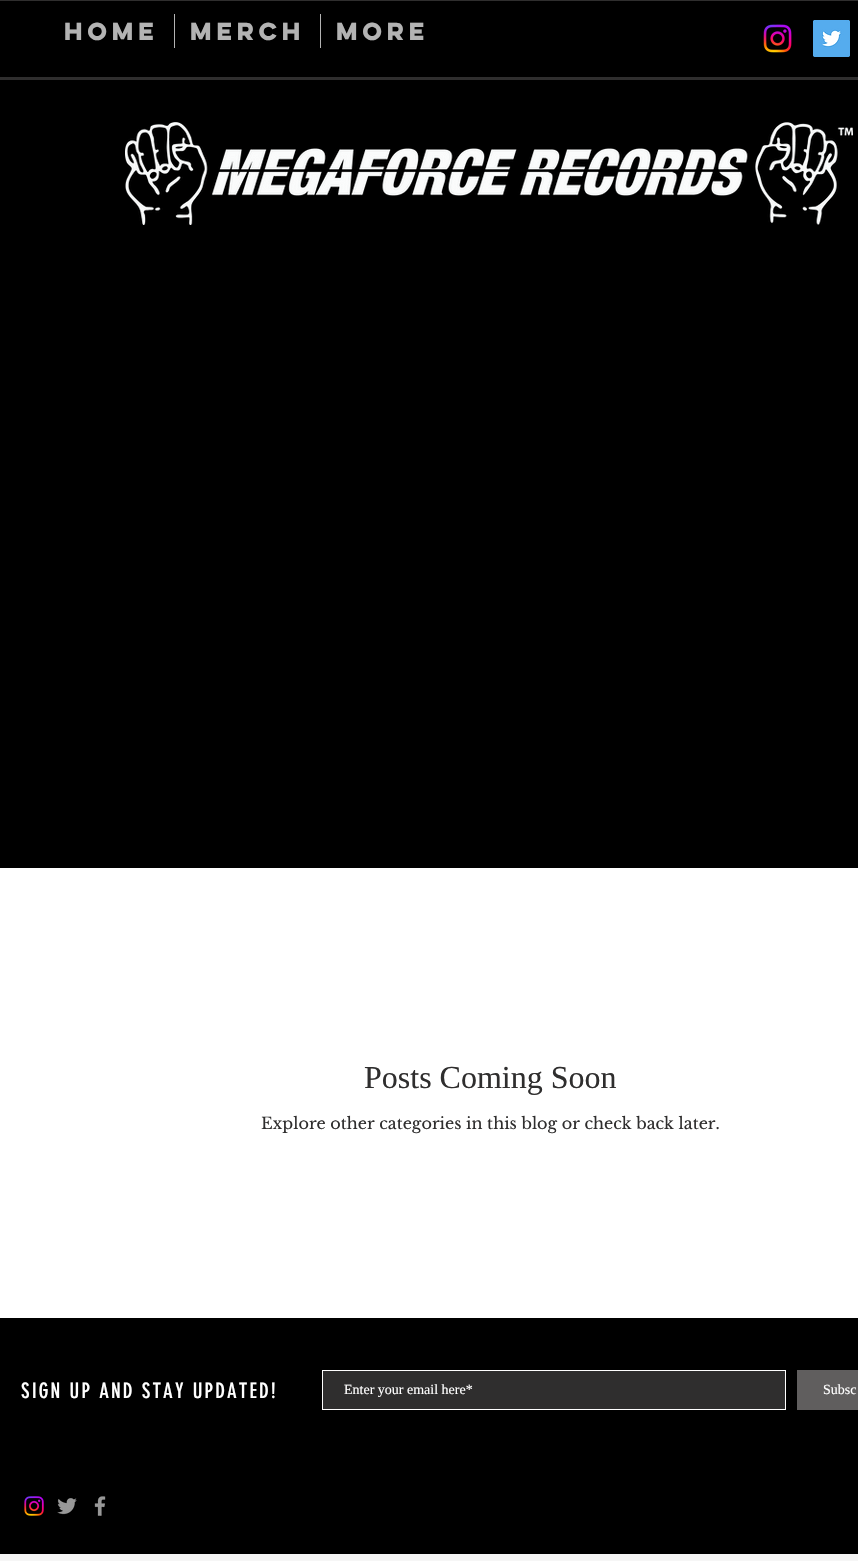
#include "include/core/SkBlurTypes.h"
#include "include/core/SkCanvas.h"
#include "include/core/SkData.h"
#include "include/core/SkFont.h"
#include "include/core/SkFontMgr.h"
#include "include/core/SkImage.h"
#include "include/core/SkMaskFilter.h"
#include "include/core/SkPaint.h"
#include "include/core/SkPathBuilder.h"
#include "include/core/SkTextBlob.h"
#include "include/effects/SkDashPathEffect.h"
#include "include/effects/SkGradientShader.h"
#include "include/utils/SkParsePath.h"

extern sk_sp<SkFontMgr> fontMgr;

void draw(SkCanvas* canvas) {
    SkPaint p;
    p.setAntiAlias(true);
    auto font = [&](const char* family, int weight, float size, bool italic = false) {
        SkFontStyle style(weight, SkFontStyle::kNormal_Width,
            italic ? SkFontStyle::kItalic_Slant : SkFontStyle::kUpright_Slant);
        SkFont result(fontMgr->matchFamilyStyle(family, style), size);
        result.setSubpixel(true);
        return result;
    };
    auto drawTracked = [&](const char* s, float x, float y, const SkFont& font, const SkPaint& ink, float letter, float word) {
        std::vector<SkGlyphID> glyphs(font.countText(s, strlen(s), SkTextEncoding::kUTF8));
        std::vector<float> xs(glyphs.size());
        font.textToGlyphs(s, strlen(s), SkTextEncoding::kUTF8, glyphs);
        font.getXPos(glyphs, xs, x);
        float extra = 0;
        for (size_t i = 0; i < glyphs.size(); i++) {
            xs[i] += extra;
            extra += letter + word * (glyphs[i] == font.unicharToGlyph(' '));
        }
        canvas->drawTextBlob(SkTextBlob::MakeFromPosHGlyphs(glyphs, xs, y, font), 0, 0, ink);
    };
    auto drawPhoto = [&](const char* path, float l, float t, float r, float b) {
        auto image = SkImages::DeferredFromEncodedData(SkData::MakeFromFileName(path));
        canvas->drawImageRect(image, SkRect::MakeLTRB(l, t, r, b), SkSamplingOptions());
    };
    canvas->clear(0xFFF6F6F6);
    p.setColor(0xFF2F2E2E);
    canvas->drawRect(SkRect::MakeLTRB(0, 0, 858, 80), p);
    p.setColor(0xFF000000);
    canvas->drawRect(SkRect::MakeLTRB(0, 1, 858, 77), p);
    auto font1 = font("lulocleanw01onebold", 700, 22);
    p.setColor(0xFFB3B3B3);
    canvas->drawString("HOME", 64, 40, font1, p);
    canvas->drawRect(SkRect::MakeLTRB(174, 14, 175, 48), p);
    canvas->drawString("MERCH", 190, 40, font1, p);
    canvas->drawRect(SkRect::MakeLTRB(320, 14, 321, 48), p);
    canvas->drawString("More", 336, 40, font1, p);
    drawPhoto("media/1.png", 763, 24, 792, 53);
    drawPhoto("media/2.png", 813, 20, 850, 57);
    p.setColor(0xFF000000);
    canvas->drawRect(SkRect::MakeLTRB(0, 80, 858, 1554), p);
    drawPhoto("media/3.png", 125, 122, 853, 225);
    p.setColor(0xFFFFFFFF);
    canvas->drawRect(SkRect::MakeLTRB(0, 868, 858, 1318), p);
    auto font2 = font("Liberation Serif", 400, 32);
    p.setColor(0xFF2F2E2E);
    canvas->drawString("Posts Coming Soon", 364, 1088, font2, p);
    auto font3 = font("Libre Baskerville", 400, 16);
    canvas->drawString("Explore other categories in this blog or check back later.", 261, 1129, font3, p);
    auto font4 = font("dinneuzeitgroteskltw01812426", 400, 21);
    p.setColor(0xFFFFFFFF);
    drawTracked("SIGN UP AND STAY UPDATED!", 21, 1398, font4, p, 2.1f, 0);
    p.setColor(0xFF2F2E2E);
    canvas->drawRect(SkRect::MakeLTRB(322.5f, 1370.5f, 785.5f, 1409.5f), p);
    p.setStyle(SkPaint::kStroke_Style);
    p.setStrokeWidth(1);
    p.setColor(0xFFFFFFFF);
    canvas->drawRect(SkRect::MakeLTRB(322.5f, 1370.5f, 785.5f, 1409.5f), p);
    auto font5 = font("Liberation Serif", 400, 14);
    p.setStyle(SkPaint::kFill_Style);
    canvas->drawString("Enter your email here*", 344, 1394, font5, p);
    p.setColor(0xFF605E5E);
    canvas->drawRect(SkRect::MakeLTRB(797, 1370, 858, 1410), p);
    p.setColor(0xFFFFFFFF);
    canvas->drawString("Subsc", 823, 1394, font5, p);
    drawPhoto("media/4.png", 24, 1496, 44, 1516);
    drawPhoto("media/5.png", 57, 1498, 77, 1515);
    drawPhoto("media/6.png", 94, 1496, 106, 1516);
}
